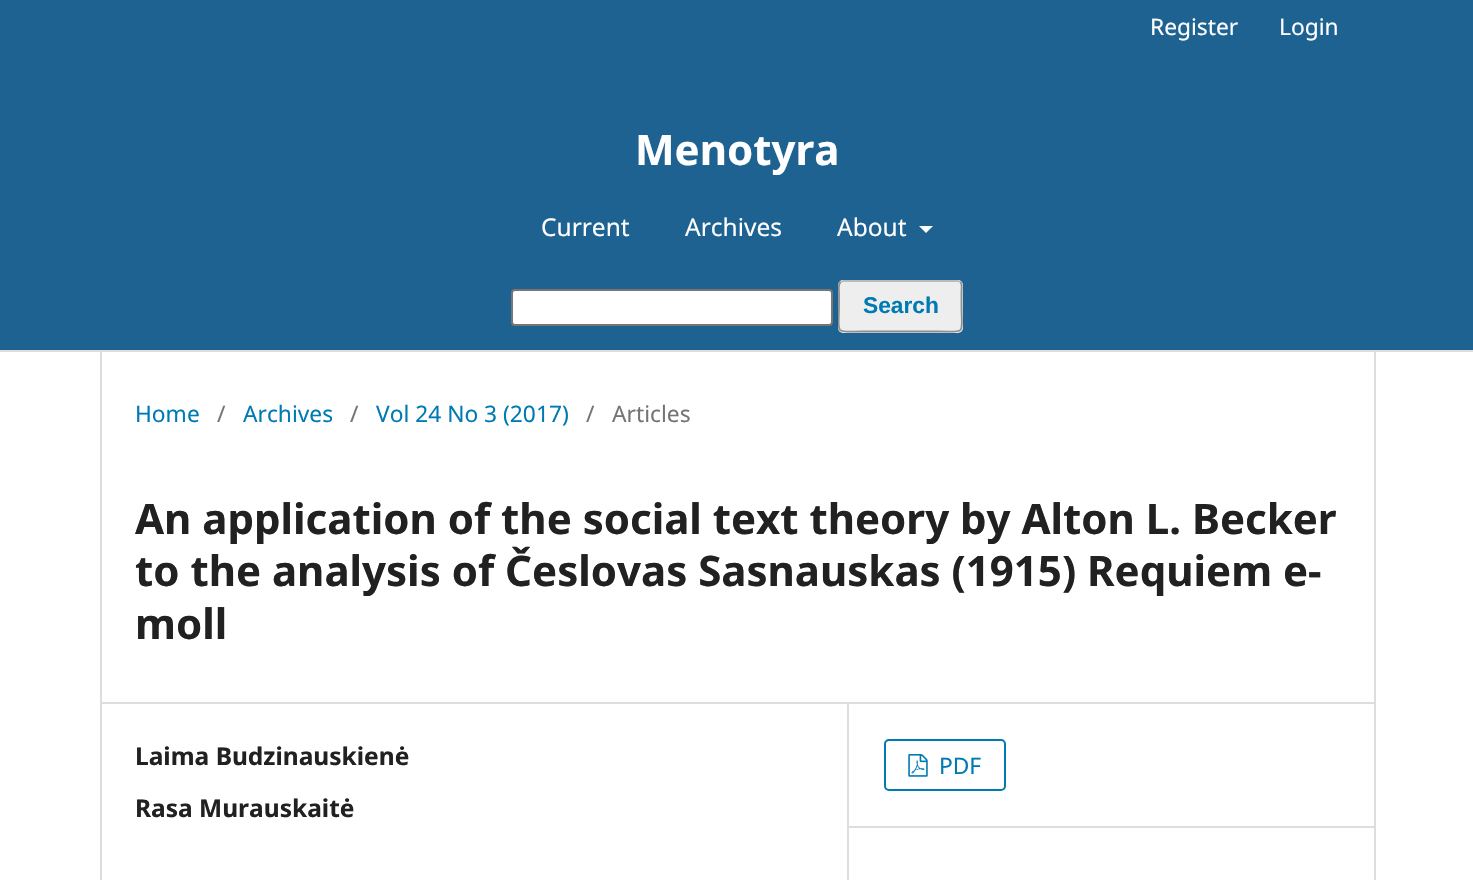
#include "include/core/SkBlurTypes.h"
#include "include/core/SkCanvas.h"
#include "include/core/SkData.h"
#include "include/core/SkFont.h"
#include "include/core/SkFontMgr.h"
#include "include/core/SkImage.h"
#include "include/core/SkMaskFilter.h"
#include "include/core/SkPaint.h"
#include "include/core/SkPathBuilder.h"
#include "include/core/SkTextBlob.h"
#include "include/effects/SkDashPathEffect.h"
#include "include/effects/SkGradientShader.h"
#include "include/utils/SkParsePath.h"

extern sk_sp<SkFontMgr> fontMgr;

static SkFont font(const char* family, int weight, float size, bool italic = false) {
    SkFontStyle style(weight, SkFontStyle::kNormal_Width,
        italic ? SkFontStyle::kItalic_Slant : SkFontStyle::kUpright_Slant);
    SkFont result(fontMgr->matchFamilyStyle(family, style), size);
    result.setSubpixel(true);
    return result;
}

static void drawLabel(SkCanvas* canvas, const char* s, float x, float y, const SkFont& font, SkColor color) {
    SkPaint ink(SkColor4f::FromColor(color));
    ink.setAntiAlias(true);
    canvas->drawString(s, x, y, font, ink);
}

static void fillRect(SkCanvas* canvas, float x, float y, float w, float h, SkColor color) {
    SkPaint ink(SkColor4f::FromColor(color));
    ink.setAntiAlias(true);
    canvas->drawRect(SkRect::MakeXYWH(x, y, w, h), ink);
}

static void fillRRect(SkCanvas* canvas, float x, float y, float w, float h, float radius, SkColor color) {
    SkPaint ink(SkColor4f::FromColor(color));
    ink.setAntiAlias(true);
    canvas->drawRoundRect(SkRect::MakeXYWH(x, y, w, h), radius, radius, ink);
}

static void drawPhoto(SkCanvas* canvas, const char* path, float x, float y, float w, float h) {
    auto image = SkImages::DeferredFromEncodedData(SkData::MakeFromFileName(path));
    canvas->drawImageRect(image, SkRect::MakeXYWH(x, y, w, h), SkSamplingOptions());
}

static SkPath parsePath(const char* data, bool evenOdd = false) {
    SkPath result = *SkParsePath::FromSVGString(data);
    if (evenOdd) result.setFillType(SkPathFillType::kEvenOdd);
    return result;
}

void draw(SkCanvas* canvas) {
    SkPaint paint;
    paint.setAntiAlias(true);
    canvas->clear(0xFFFFFFFF);
    fillRect(canvas, 0, 0, 1473, 350, 0xFF1E6292);
    fillRect(canvas, 0, 350, 1473, 2, 0xFFDDDDDD);
    SkFont font1 = font("Noto Sans", 400, 22.75f);
    drawLabel(canvas, "Register", 1150, 35, font1, 0xFFFFFFFF);
    drawLabel(canvas, "Login", 1279, 35, font1, 0xFFFFFFFF);
    SkFont font2 = font("Noto Sans", 700, 42);
    drawLabel(canvas, "Menotyra", 635, 165, font2, 0xFFFFFFFF);
    SkFont font3 = font("Noto Sans", 400, 24.5f);
    drawLabel(canvas, "Current", 541, 236, font3, 0xFFFFFFFF);
    drawLabel(canvas, "Archives", 685, 236, font3, 0xFFFFFFFF);
    drawLabel(canvas, "About", 837, 236, font3, 0xFFFFFFFF);
    paint.setColor(0xFFFFFFFF);
    canvas->drawPath(parsePath("M919 226H933L926 233Z"), paint);
    canvas->drawRoundRect(SkRect::MakeXYWH(512, 290, 320, 35), 3, 3, paint);
    paint.setStroke(true);
    paint.setStrokeWidth(2);
    paint.setColor(0xFF767676);
    canvas->drawRoundRect(SkRect::MakeXYWH(512, 290, 320, 35), 3, 3, paint);
    fillRRect(canvas, 838, 280, 125, 53, 5, 0xFFEEEEEE);
    paint.setStrokeWidth(1.8f);
    paint.setColor(0xFFBBBBBB);
    canvas->drawPath(parsePath("M840.5 282L843.5 281H957.5L960.5 282"), paint);
    paint.setColor(0x66000000);
    canvas->drawPath(parsePath("M960.5 282C962.5 284.5 961.5 290 961.5 292V306C961.5 335.5 967 331.5 938.5 331.5H862.5C833.5 331.5 839 335.5 839 306V292C839 290 838 284.5 840.5 282"), paint);
    SkFont font4 = font("Liberation Sans", 700, 22.75f);
    drawLabel(canvas, "Search", 863, 313, font4, 0xFF007AB2);
    fillRect(canvas, 100, 702, 1274, 2, 0xFFDDDDDD);
    fillRect(canvas, 100, 352, 2, 528, 0xFFDDDDDD);
    drawLabel(canvas, "Home", 135, 422, font1, 0xFF007AB2);
    drawLabel(canvas, "/", 217, 422, font1, 0xFF757575);
    drawLabel(canvas, "Archives", 243, 422, font1, 0xFF007AB2);
    drawLabel(canvas, "/", 350, 422, font1, 0xFF757575);
    drawLabel(canvas, "Vol 24 No 3 (2017)", 376, 422, font1, 0xFF007AB2);
    drawLabel(canvas, "/", 586, 422, font1, 0xFF757575);
    drawLabel(canvas, "Articles", 612, 422, font1, 0xFF757575);
    drawLabel(canvas, "An application of the social text theory by Alton L. Becker", 135, 534, font2, 0xFF212121);
    drawLabel(canvas, "to the analysis of Česlovas Sasnauskas (1915) Requiem e-", 135, 586, font2, 0xFF212121);
    drawLabel(canvas, "moll", 135, 639, font2, 0xFF212121);
    fillRect(canvas, 847, 704, 2, 176, 0xFFDDDDDD);
    SkFont font5 = font("Noto Sans", 700, 24.5f);
    drawLabel(canvas, "Laima Budzinauskienė", 135, 765, font5, 0xFF212121);
    drawLabel(canvas, "Rasa Murauskaitė", 135, 817, font5, 0xFF212121);
    fillRect(canvas, 849, 826, 525, 2, 0xFFDDDDDD);
    paint.setStrokeWidth(2);
    paint.setColor(0xFF007AB2);
    canvas->drawRoundRect(SkRect::MakeXYWH(885, 740, 120, 50), 4, 4, paint);
    drawPhoto(canvas, "assets/img1.png", 908, 754, 20, 23);
    drawLabel(canvas, "PDF", 939, 774, font1, 0xFF007AB2);
    fillRect(canvas, 1374, 352, 2, 528, 0xFFDDDDDD);
}
